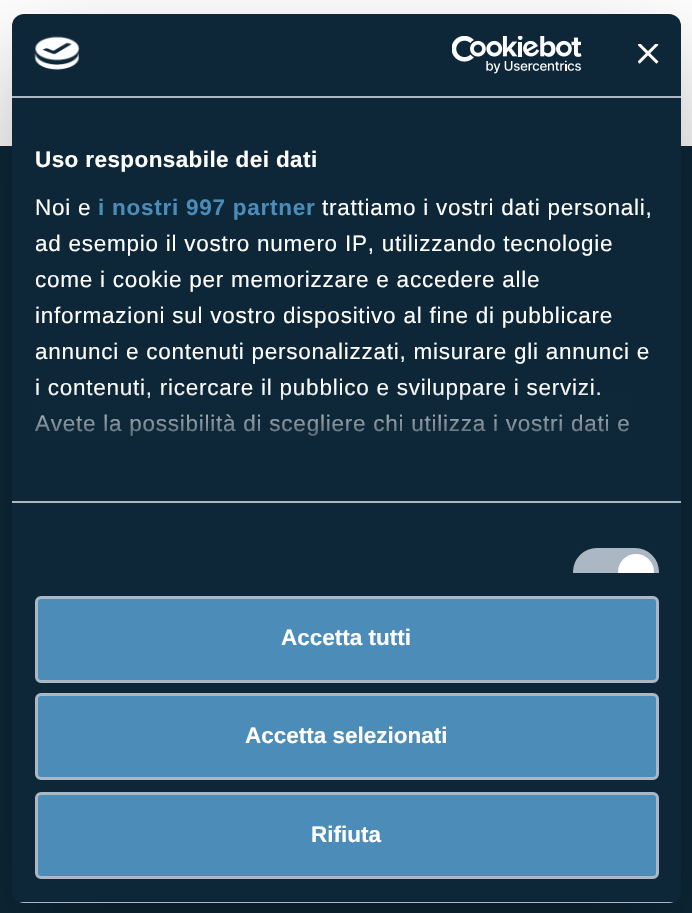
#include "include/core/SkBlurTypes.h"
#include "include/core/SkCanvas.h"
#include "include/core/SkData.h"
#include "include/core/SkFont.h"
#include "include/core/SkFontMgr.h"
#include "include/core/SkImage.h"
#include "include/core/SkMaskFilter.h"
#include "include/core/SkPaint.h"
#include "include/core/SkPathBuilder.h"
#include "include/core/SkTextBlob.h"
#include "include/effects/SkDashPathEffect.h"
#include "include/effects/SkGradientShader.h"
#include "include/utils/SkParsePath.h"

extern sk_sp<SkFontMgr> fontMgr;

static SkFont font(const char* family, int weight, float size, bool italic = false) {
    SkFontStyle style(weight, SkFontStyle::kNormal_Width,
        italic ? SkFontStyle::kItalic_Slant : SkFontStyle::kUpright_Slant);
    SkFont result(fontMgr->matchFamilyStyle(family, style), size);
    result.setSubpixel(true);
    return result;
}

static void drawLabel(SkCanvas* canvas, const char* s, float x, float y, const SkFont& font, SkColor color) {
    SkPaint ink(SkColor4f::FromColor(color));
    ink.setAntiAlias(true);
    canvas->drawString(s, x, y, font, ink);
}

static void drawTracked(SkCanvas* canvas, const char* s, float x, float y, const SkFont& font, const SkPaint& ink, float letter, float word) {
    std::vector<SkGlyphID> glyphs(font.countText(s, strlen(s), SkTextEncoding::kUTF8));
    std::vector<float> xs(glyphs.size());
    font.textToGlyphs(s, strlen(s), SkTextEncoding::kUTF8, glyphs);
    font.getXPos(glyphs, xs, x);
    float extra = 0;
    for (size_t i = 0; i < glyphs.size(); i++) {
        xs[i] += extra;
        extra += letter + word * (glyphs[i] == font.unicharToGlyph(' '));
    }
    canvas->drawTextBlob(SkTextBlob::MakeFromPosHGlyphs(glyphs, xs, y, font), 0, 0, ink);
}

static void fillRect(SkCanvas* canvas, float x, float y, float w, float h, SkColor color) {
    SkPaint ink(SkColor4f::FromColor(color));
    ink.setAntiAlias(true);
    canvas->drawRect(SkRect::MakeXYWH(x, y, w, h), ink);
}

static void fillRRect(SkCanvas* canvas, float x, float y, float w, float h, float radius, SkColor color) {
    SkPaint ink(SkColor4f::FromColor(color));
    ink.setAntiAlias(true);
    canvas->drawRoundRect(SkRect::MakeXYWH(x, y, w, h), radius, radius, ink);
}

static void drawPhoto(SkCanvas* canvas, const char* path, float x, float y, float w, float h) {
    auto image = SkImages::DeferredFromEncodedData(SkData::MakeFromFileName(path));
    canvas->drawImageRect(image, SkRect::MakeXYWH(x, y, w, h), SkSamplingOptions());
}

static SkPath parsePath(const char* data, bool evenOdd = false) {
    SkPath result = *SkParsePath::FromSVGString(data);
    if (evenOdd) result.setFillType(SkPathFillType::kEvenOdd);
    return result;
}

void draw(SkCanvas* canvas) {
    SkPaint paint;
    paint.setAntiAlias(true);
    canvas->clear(0xFFFFFFFF);
    fillRect(canvas, 0, 146, 692, 767, 0xFF0D2738);
    paint.setColor(0x4D000000);
    paint.setMaskFilter(SkMaskFilter::MakeBlur(kNormal_SkBlurStyle, 51));
    canvas->drawRoundRect(SkRect::MakeXYWH(12, 62, 669, 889), 12, 12, paint);
    paint.setMaskFilter(nullptr);
    fillRRect(canvas, 12, 14, 669, 889, 12, 0xFF0D2738);
    fillRect(canvas, 12, 96, 669, 2, 0xFFABB8C3);
    drawPhoto(canvas, "assets/img1.png", 34, 36, 46, 34);
    drawPhoto(canvas, "assets/img2.png", 452, 36, 130, 38);
    drawPhoto(canvas, "assets/img3.png", 638, 44, 21, 20);
    fillRect(canvas, 12, 501, 669, 2, 0xFFABB8C3);
    SkFont font1 = font("Liberation Sans", 700, 22.5f);
    paint.setColor(0xFFFFFFFF);
    drawTracked(canvas, "Uso responsabile dei dati", 35, 167, font1, paint, 0.4f, 0);
    SkFont font2 = font("Liberation Sans", 400, 22.5f);
    drawTracked(canvas, "Noi e", 35, 215, font2, paint, 0.75f, 0);
    paint.setColor(0xFF4B8CB8);
    drawTracked(canvas, "i nostri 997 partner", 98, 215, font1, paint, 0.75f, 0);
    paint.setColor(0xFFFFFFFF);
    drawTracked(canvas, "trattiamo i vostri dati personali,", 322, 215, font2, paint, 0.75f, 0);
    drawTracked(canvas, "ad esempio il vostro numero IP, utilizzando tecnologie", 35, 251, font2, paint, 0.75f, 0);
    drawTracked(canvas, "come i cookie per memorizzare e accedere alle", 35, 287, font2, paint, 0.75f, 0);
    drawTracked(canvas, "informazioni sul vostro dispositivo al fine di pubblicare", 35, 323, font2, paint, 0.75f, 0);
    drawTracked(canvas, "annunci e contenuti personalizzati, misurare gli annunci e", 35, 359, font2, paint, 0.75f, 0);
    drawTracked(canvas, "i contenuti, ricercare il pubblico e sviluppare i servizi.", 35, 395, font2, paint, 0.75f, 0);
    drawTracked(canvas, "Avete la possibilità di scegliere chi utilizza i vostri dati e", 35, 431, font2, paint, 0.75f, 0);
    {
        const SkColor colors[] = {0xFF0D2738, 0xCC0D2738, 0x000D2738};
        const float stops[] = {0, 0.5f, 1};
        const SkPoint ends[] = {{337, 500}, {337, 388}};
        paint.setShader(SkGradientShader::MakeLinear(ends, colors, stops, 3, SkTileMode::kClamp));
        paint.setAlpha(255);
    }
    canvas->drawRect(SkRect::MakeXYWH(34, 390, 595, 46), paint);
    canvas->save();
    canvas->clipRect(SkRect::MakeXYWH(12, 98, 669, 475));
    fillRRect(canvas, 573, 548, 86, 48, 24, 0xFFABB8C3);
    paint.setShader(nullptr);
    paint.setColor(0xFFFFFFFF);
    canvas->drawCircle(636, 572, 18, paint);
    canvas->restore();
    canvas->save();
    canvas->clipPath(parsePath("M24 14H669C675.5 14 681 19.5 681 26V891C681 897.5 675.5 903 669 903H24C17.5 903 12 897.5 12 891V26C12 19.5 17.5 14 24 14Z"), true);
    fillRect(canvas, 12, 902, 669, 1, 0xFFABB8C3);
    canvas->restore();
    paint.setColor(0xFF4B8CB8);
    canvas->drawRoundRect(SkRect::MakeXYWH(36.5f, 597.5f, 621, 84), 4.5f, 4.5f, paint);
    paint.setStroke(true);
    paint.setStrokeWidth(3);
    paint.setColor(0xFFABB8C3);
    canvas->drawRoundRect(SkRect::MakeXYWH(36.5f, 597.5f, 621, 84), 4.5f, 4.5f, paint);
    drawLabel(canvas, "Accetta tutti", 281, 645, font1, 0xFFFFFFFF);
    paint.setStroke(false);
    paint.setColor(0xFF4B8CB8);
    canvas->drawRoundRect(SkRect::MakeXYWH(36.5f, 694.5f, 621, 84), 4.5f, 4.5f, paint);
    paint.setStroke(true);
    paint.setColor(0xFFABB8C3);
    canvas->drawRoundRect(SkRect::MakeXYWH(36.5f, 694.5f, 621, 84), 4.5f, 4.5f, paint);
    drawLabel(canvas, "Accetta selezionati", 245, 743, font1, 0xFFFFFFFF);
    paint.setStroke(false);
    paint.setColor(0xFF4B8CB8);
    canvas->drawRoundRect(SkRect::MakeXYWH(36.5f, 793.5f, 621, 84), 4.5f, 4.5f, paint);
    paint.setStroke(true);
    paint.setColor(0xFFABB8C3);
    canvas->drawRoundRect(SkRect::MakeXYWH(36.5f, 793.5f, 621, 84), 4.5f, 4.5f, paint);
    drawLabel(canvas, "Rifiuta", 311, 842, font1, 0xFFFFFFFF);
}
